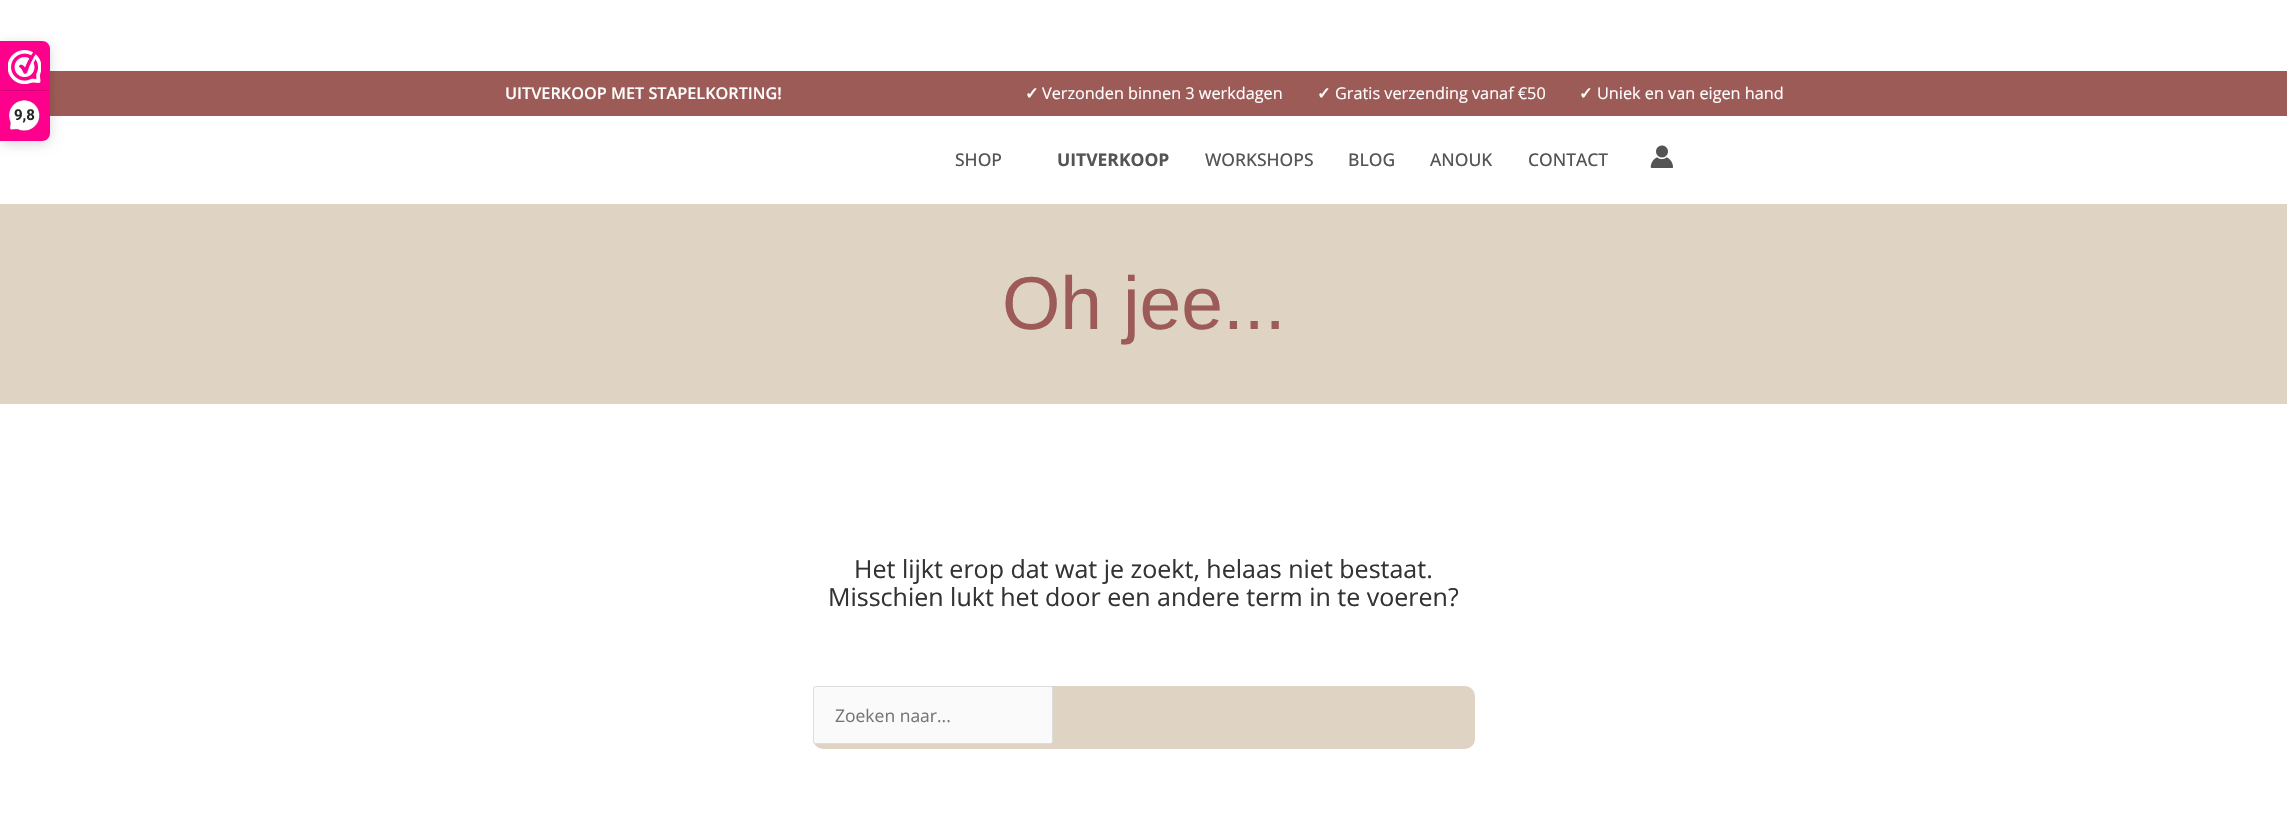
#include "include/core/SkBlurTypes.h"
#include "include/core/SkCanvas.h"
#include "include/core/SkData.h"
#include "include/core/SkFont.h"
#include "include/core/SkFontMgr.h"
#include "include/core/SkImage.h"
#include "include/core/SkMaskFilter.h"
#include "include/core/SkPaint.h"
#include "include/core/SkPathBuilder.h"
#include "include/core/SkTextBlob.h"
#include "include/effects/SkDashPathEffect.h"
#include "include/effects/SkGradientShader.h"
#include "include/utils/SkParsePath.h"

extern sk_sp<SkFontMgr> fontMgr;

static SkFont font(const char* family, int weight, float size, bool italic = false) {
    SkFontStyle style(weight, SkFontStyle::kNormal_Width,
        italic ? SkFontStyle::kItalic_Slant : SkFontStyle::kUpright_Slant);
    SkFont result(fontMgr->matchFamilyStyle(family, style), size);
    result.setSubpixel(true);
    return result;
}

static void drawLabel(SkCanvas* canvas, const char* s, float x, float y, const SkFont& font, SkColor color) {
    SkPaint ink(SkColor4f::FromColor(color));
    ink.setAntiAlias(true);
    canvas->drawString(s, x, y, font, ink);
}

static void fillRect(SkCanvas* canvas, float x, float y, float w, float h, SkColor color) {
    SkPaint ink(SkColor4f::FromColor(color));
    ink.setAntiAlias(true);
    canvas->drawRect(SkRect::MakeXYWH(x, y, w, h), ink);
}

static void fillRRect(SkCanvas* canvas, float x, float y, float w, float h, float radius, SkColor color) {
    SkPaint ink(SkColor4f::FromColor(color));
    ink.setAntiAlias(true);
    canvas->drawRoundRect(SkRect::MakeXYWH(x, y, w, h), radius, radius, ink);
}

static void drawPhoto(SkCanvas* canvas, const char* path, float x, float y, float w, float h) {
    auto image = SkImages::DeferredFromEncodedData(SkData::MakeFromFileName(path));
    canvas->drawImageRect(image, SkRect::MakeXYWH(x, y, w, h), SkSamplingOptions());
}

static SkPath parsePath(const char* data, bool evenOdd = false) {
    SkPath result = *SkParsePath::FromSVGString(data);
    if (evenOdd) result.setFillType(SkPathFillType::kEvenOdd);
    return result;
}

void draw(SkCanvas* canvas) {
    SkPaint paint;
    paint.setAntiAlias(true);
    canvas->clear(0xFFFFFFFF);
    fillRect(canvas, 50, 71, 2237, 45, 0xFF9D5B57);
    paint.setColor(0x26000000);
    paint.setMaskFilter(SkMaskFilter::MakeBlur(kNormal_SkBlurStyle, 6));
    canvas->drawRoundRect(SkRect::MakeXYWH(0, 44, 50, 100), 8, 8, paint);
    paint.setMaskFilter(nullptr);
    paint.setColor(0xFFFE008C);
    canvas->drawPath(parsePath("M0 41H42C46.5 41 50 44.5 50 49V133C50 137.5 46.5 141 42 141H0Z"), paint);
    drawPhoto(canvas, "assets/img1.png", 8, 50, 33, 34);
    fillRect(canvas, 0, 90, 49, 1, 0xFFD80077);
    drawPhoto(canvas, "assets/img2.png", 9, 100, 31, 31);
    SkFont font1 = font("Roboto", 700, 15);
    drawLabel(canvas, "9,8", 14, 120, font1, 0xFF272626);
    SkFont font2 = font("Open Sans", 600, 16.25f);
    drawLabel(canvas, "UITVERKOOP MET STAPELKORTING!", 505, 99, font2, 0xFFFFFFFF);
    SkFont font3 = font("DejaVu Sans", 700, 16.25f);
    drawLabel(canvas, "✓", 1025, 99, font3, 0xFFFFFFFF);
    SkFont font4 = font("Open Sans", 400, 16.25f);
    drawLabel(canvas, "Verzonden binnen 3 werkdagen", 1042, 99, font4, 0xFFFFFFFF);
    drawLabel(canvas, "✓", 1317, 99, font3, 0xFFFFFFFF);
    drawLabel(canvas, "Gratis verzending vanaf €50", 1335, 99, font4, 0xFFFFFFFF);
    drawLabel(canvas, "✓", 1579, 99, font3, 0xFFFFFFFF);
    drawLabel(canvas, "Uniek en van eigen hand", 1597, 99, font4, 0xFFFFFFFF);
    SkFont font5 = font("Open Sans", 500, 17.5f);
    drawLabel(canvas, "SHOP", 955, 166, font5, 0xFF545454);
    SkFont font6 = font("Open Sans", 700, 17.5f);
    drawLabel(canvas, "UITVERKOOP", 1057, 166, font6, 0xFF545454);
    drawLabel(canvas, "WORKSHOPS", 1205, 166, font5, 0xFF545454);
    drawLabel(canvas, "BLOG", 1348, 166, font5, 0xFF545454);
    drawLabel(canvas, "ANOUK", 1430, 166, font5, 0xFF545454);
    drawLabel(canvas, "CONTACT", 1528, 166, font5, 0xFF545454);
    drawPhoto(canvas, "assets/img3.png", 1650, 145, 23, 23);
    fillRect(canvas, 0, 204, 2287, 200, 0xFFDFD3C4);
    SkFont font7 = font("Liberation Sans", 400, 75);
    drawLabel(canvas, "Oh jee...", 1002, 329, font7, 0xFF9D5B57);
    SkFont font8 = font("Open Sans", 400, 25);
    drawLabel(canvas, "Het lijkt erop dat wat je zoekt, helaas niet bestaat.", 854, 578, font8, 0xFF333333);
    drawLabel(canvas, "Misschien lukt het door een andere term in te voeren?", 828, 606, font8, 0xFF333333);
    fillRRect(canvas, 813, 686, 662, 63, 10, 0xFFDFD3C4);
    paint.setColor(0xFFFAFAFA);
    canvas->drawRoundRect(SkRect::MakeXYWH(813.5f, 686.5f, 239, 57), 2, 2, paint);
    paint.setStroke(true);
    paint.setStrokeWidth(1);
    paint.setColor(0xFFDDDDDD);
    canvas->drawRoundRect(SkRect::MakeXYWH(813.5f, 686.5f, 239, 57), 2, 2, paint);
    SkFont font9 = font("Open Sans", 400, 17.5f);
    drawLabel(canvas, "Zoeken naar...", 835, 722, font9, 0xFF757575);
}
